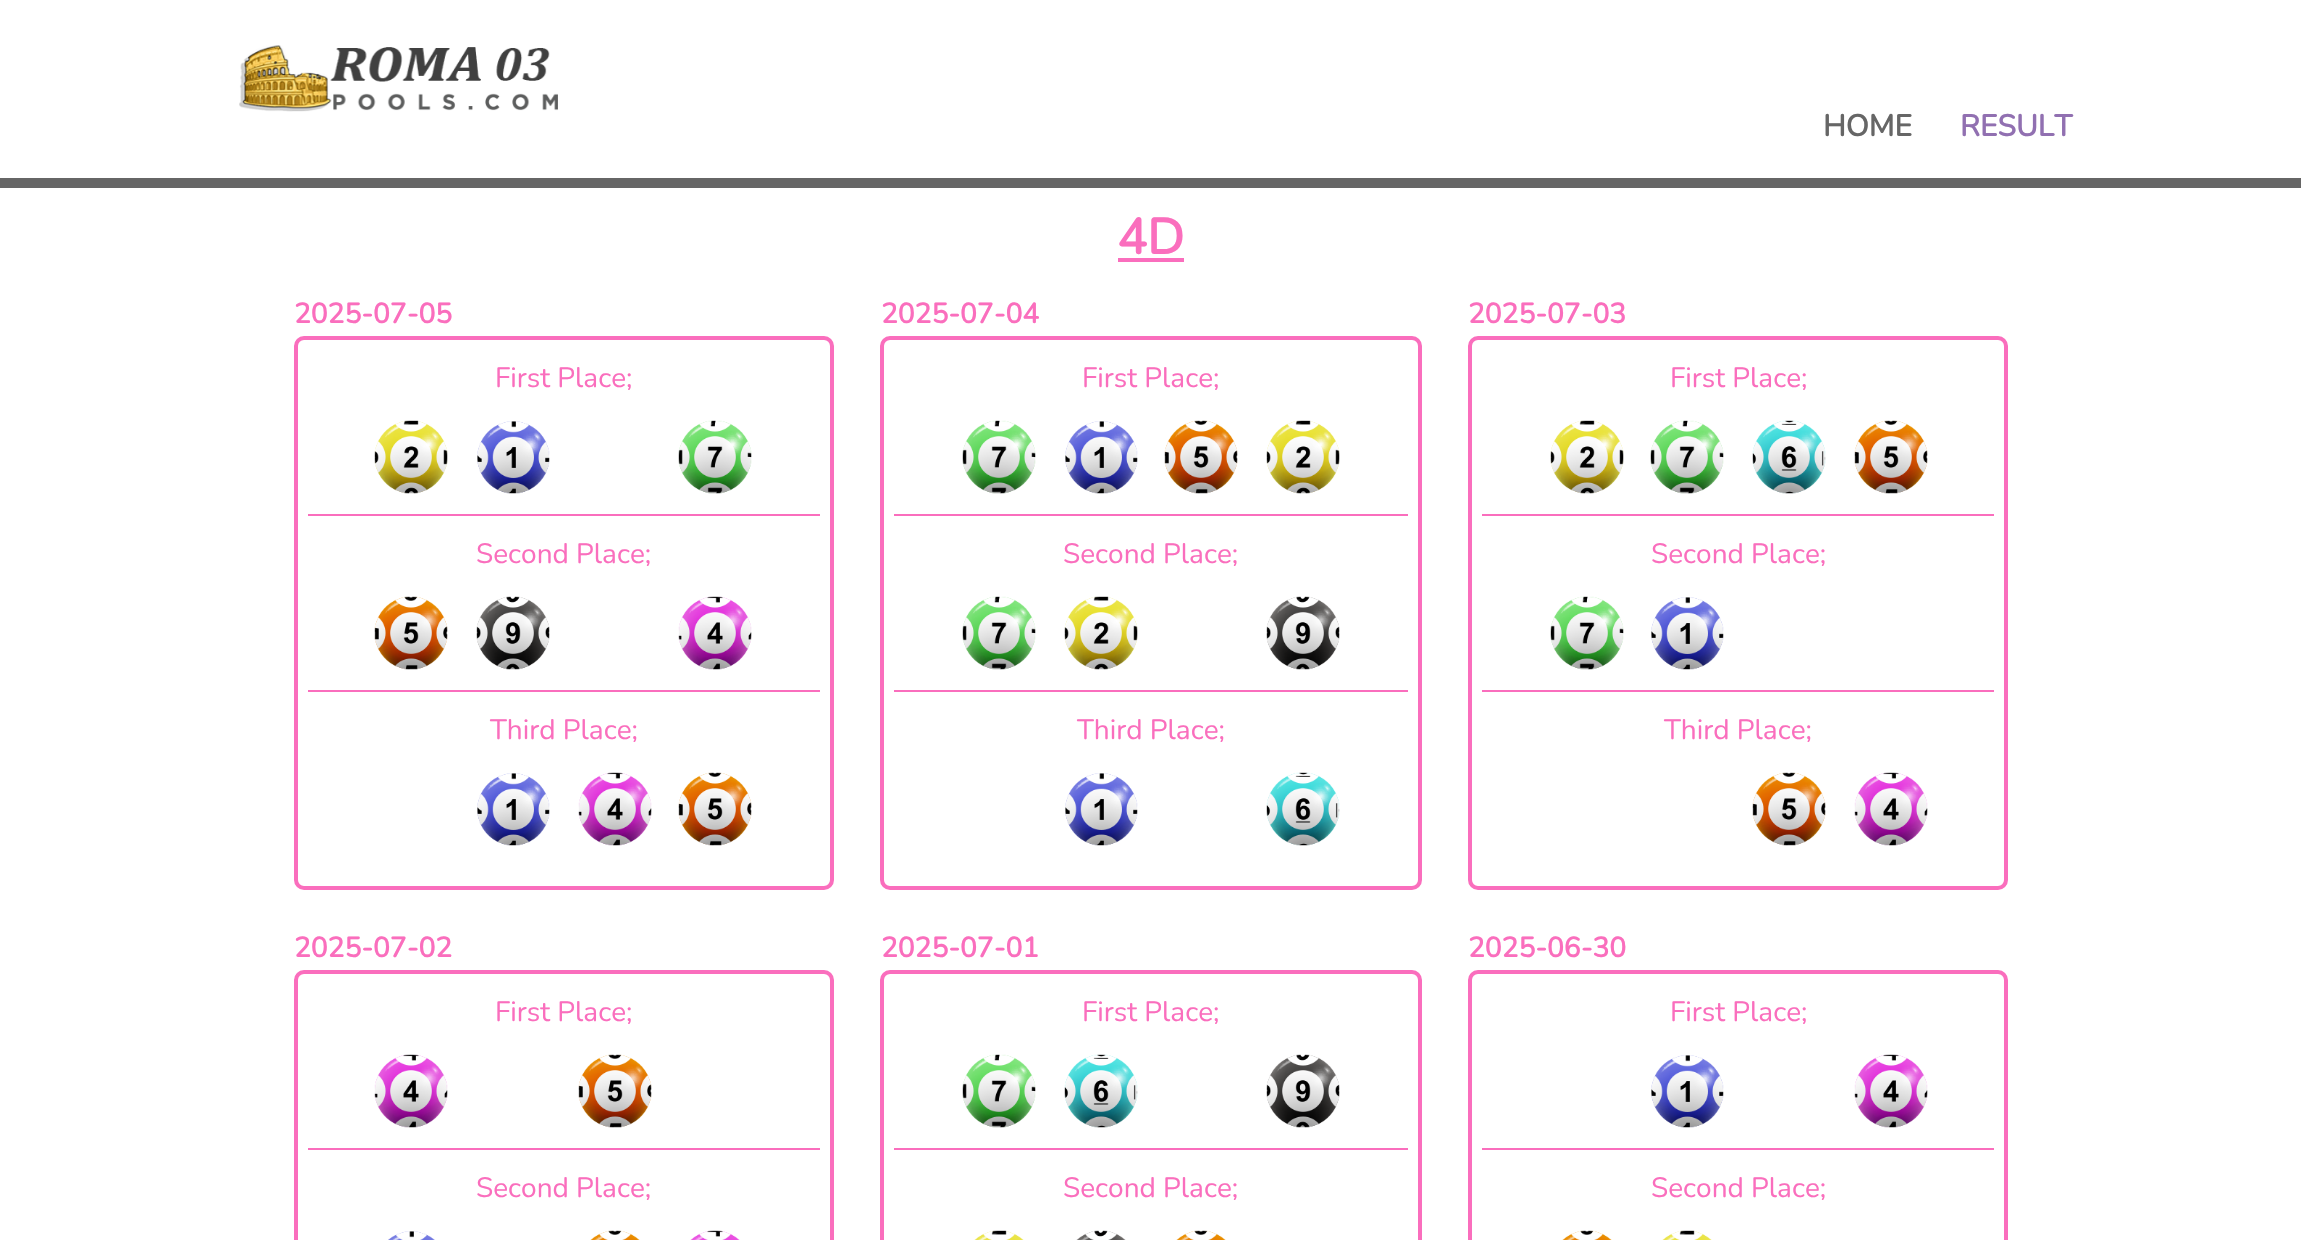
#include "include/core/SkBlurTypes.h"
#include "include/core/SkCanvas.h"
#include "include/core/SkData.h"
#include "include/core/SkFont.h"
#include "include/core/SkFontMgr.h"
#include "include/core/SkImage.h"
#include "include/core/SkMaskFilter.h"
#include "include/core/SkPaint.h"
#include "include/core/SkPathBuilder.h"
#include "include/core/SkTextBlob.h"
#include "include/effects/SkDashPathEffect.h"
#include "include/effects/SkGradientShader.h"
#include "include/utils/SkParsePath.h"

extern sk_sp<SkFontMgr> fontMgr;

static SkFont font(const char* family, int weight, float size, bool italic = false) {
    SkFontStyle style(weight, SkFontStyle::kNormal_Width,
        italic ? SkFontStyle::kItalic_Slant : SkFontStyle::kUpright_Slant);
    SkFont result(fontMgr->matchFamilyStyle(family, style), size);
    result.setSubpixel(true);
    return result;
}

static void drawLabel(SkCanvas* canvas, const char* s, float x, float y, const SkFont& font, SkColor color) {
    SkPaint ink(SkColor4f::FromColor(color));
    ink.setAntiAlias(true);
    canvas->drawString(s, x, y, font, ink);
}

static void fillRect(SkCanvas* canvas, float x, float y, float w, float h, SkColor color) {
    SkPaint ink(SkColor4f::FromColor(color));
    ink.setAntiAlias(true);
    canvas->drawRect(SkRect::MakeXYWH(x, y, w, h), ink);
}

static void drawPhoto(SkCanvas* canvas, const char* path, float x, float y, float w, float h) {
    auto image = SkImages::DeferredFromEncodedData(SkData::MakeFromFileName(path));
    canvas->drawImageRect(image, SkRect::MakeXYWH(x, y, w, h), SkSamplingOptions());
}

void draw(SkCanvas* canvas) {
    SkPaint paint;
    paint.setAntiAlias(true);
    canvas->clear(0xFFFFFFFF);
    fillRect(canvas, 0, 178, 2301, 10, 0xFF666666);
    drawPhoto(canvas, "assets/img1.png", 239, 45, 319, 67);
    SkFont font1 = font("Nunito", 700, 30);
    drawLabel(canvas, "HOME", 1823, 136, font1, 0xFF666666);
    drawLabel(canvas, "RESULT", 1960, 136, font1, 0xFF9170B1);
    SkFont font2 = font("Nunito", 700, 50);
    drawLabel(canvas, "4D", 1117, 254, font2, 0xFFFA6EBD);
    fillRect(canvas, 1118, 258, 66, 4, 0xFFFA6EBD);
    SkFont font3 = font("Nunito", 700, 28);
    drawLabel(canvas, "2025-07-05", 294, 323, font3, 0xFFFA6EBD);
    paint.setStroke(true);
    paint.setStrokeWidth(4);
    paint.setColor(0xFFFA6EBD);
    canvas->drawRoundRect(SkRect::MakeXYWH(296, 338, 536, 550), 8, 8, paint);
    SkFont font4 = font("Nunito", 200, 28);
    drawLabel(canvas, "First Place;", 495, 387, font4, 0xFFFA6EBD);
    fillRect(canvas, 308, 514, 512, 2, 0xFFFA6EBD);
    drawPhoto(canvas, "assets/img2.png", 374, 420, 74, 74);
    drawPhoto(canvas, "assets/img3.png", 477, 421, 73, 73);
    drawPhoto(canvas, "assets/img4.png", 678, 420, 74, 74);
    drawLabel(canvas, "Second Place;", 476, 563, font4, 0xFFFA6EBD);
    fillRect(canvas, 308, 690, 512, 2, 0xFFFA6EBD);
    drawPhoto(canvas, "assets/img5.png", 374, 596, 74, 74);
    drawPhoto(canvas, "assets/img6.png", 476, 596, 74, 74);
    drawPhoto(canvas, "assets/img7.png", 678, 596, 74, 74);
    drawLabel(canvas, "Third Place;", 490, 739, font4, 0xFFFA6EBD);
    drawPhoto(canvas, "assets/img3.png", 477, 773, 73, 73);
    drawPhoto(canvas, "assets/img8.png", 578, 772, 74, 74);
    drawPhoto(canvas, "assets/img9.png", 678, 772, 74, 74);
    drawLabel(canvas, "2025-07-04", 881, 323, font3, 0xFFFA6EBD);
    canvas->drawRoundRect(SkRect::MakeXYWH(882, 338, 538, 550), 8, 8, paint);
    drawLabel(canvas, "First Place;", 1082, 387, font4, 0xFFFA6EBD);
    fillRect(canvas, 894, 514, 514, 2, 0xFFFA6EBD);
    drawPhoto(canvas, "assets/img10.png", 962, 420, 74, 74);
    drawPhoto(canvas, "assets/img11.png", 1065, 421, 73, 73);
    drawPhoto(canvas, "assets/img9.png", 1164, 420, 74, 74);
    drawPhoto(canvas, "assets/img12.png", 1266, 420, 74, 74);
    drawLabel(canvas, "Second Place;", 1063, 563, font4, 0xFFFA6EBD);
    fillRect(canvas, 894, 690, 514, 2, 0xFFFA6EBD);
    drawPhoto(canvas, "assets/img10.png", 962, 596, 74, 74);
    drawPhoto(canvas, "assets/img2.png", 1064, 596, 74, 74);
    drawPhoto(canvas, "assets/img13.png", 1266, 596, 74, 74);
    drawLabel(canvas, "Third Place;", 1077, 739, font4, 0xFFFA6EBD);
    drawPhoto(canvas, "assets/img11.png", 1065, 773, 73, 73);
    drawPhoto(canvas, "assets/img14.png", 1266, 772, 74, 74);
    drawLabel(canvas, "2025-07-03", 1468, 323, font3, 0xFFFA6EBD);
    canvas->drawRoundRect(SkRect::MakeXYWH(1470, 338, 536, 550), 8, 8, paint);
    drawLabel(canvas, "First Place;", 1670, 387, font4, 0xFFFA6EBD);
    fillRect(canvas, 1482, 514, 512, 2, 0xFFFA6EBD);
    drawPhoto(canvas, "assets/img12.png", 1550, 420, 74, 74);
    drawPhoto(canvas, "assets/img4.png", 1650, 420, 74, 74);
    drawPhoto(canvas, "assets/img14.png", 1752, 420, 74, 74);
    drawPhoto(canvas, "assets/img5.png", 1854, 420, 74, 74);
    drawLabel(canvas, "Second Place;", 1651, 563, font4, 0xFFFA6EBD);
    fillRect(canvas, 1482, 690, 512, 2, 0xFFFA6EBD);
    drawPhoto(canvas, "assets/img4.png", 1550, 596, 74, 74);
    drawPhoto(canvas, "assets/img15.png", 1651, 597, 73, 73);
    drawLabel(canvas, "Third Place;", 1664, 739, font4, 0xFFFA6EBD);
    drawPhoto(canvas, "assets/img9.png", 1752, 772, 74, 74);
    drawPhoto(canvas, "assets/img8.png", 1854, 772, 74, 74);
    drawLabel(canvas, "2025-07-02", 294, 957, font3, 0xFFFA6EBD);
    canvas->drawRoundRect(SkRect::MakeXYWH(296, 972, 536, 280), 8, 8, paint);
    drawLabel(canvas, "First Place;", 495, 1021, font4, 0xFFFA6EBD);
    fillRect(canvas, 308, 1148, 512, 2, 0xFFFA6EBD);
    drawPhoto(canvas, "assets/img16.png", 374, 1054, 74, 74);
    drawPhoto(canvas, "assets/img17.png", 578, 1054, 74, 74);
    drawLabel(canvas, "Second Place;", 476, 1197, font4, 0xFFFA6EBD);
    drawPhoto(canvas, "assets/img18.png", 388, 1231, 47, 9);
    drawPhoto(canvas, "assets/img19.png", 590, 1230, 50, 10);
    drawPhoto(canvas, "assets/img20.png", 690, 1230, 50, 10);
    drawLabel(canvas, "2025-07-01", 881, 957, font3, 0xFFFA6EBD);
    canvas->drawRoundRect(SkRect::MakeXYWH(882, 972, 538, 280), 8, 8, paint);
    drawLabel(canvas, "First Place;", 1082, 1021, font4, 0xFFFA6EBD);
    fillRect(canvas, 894, 1148, 514, 2, 0xFFFA6EBD);
    drawPhoto(canvas, "assets/img21.png", 962, 1054, 74, 74);
    drawPhoto(canvas, "assets/img22.png", 1064, 1054, 74, 74);
    drawPhoto(canvas, "assets/img23.png", 1266, 1054, 74, 74);
    drawLabel(canvas, "Second Place;", 1063, 1197, font4, 0xFFFA6EBD);
    drawPhoto(canvas, "assets/img24.png", 974, 1230, 50, 10);
    drawPhoto(canvas, "assets/img25.png", 1076, 1230, 50, 10);
    drawPhoto(canvas, "assets/img26.png", 1176, 1230, 50, 10);
    drawLabel(canvas, "2025-06-30", 1468, 957, font3, 0xFFFA6EBD);
    canvas->drawRoundRect(SkRect::MakeXYWH(1470, 972, 536, 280), 8, 8, paint);
    drawLabel(canvas, "First Place;", 1670, 1021, font4, 0xFFFA6EBD);
    fillRect(canvas, 1482, 1148, 512, 2, 0xFFFA6EBD);
    drawPhoto(canvas, "assets/img27.png", 1651, 1055, 73, 73);
    drawPhoto(canvas, "assets/img16.png", 1854, 1054, 74, 74);
    drawLabel(canvas, "Second Place;", 1651, 1197, font4, 0xFFFA6EBD);
    drawPhoto(canvas, "assets/img26.png", 1562, 1230, 50, 10);
    drawPhoto(canvas, "assets/img28.png", 1662, 1230, 50, 10);
}
